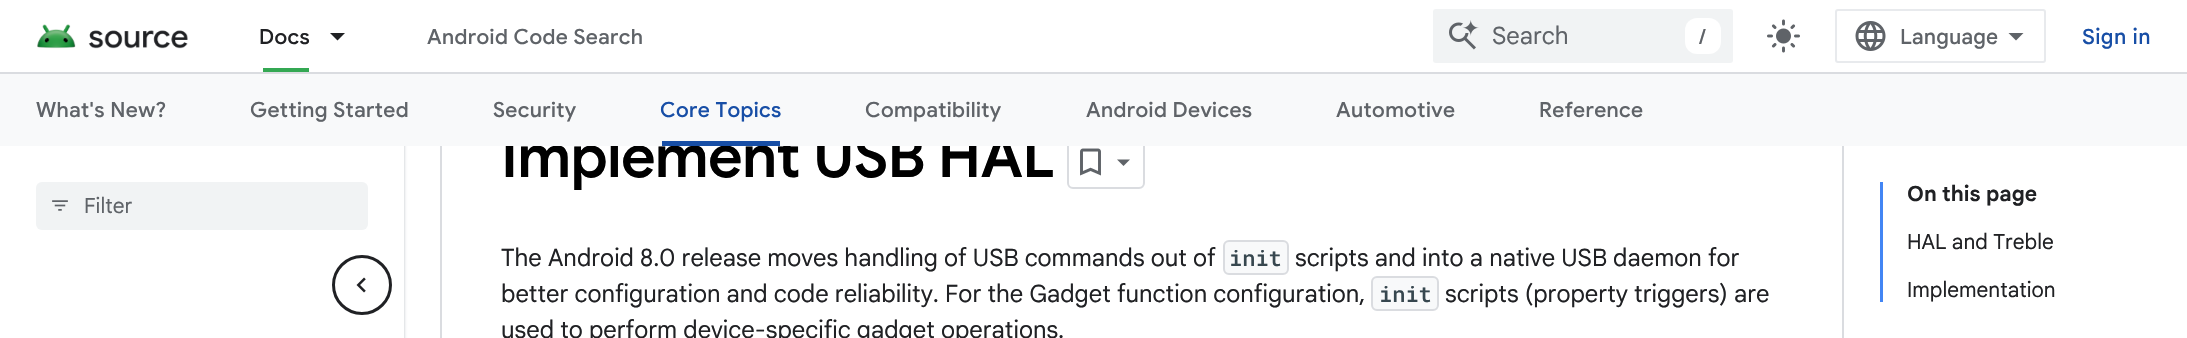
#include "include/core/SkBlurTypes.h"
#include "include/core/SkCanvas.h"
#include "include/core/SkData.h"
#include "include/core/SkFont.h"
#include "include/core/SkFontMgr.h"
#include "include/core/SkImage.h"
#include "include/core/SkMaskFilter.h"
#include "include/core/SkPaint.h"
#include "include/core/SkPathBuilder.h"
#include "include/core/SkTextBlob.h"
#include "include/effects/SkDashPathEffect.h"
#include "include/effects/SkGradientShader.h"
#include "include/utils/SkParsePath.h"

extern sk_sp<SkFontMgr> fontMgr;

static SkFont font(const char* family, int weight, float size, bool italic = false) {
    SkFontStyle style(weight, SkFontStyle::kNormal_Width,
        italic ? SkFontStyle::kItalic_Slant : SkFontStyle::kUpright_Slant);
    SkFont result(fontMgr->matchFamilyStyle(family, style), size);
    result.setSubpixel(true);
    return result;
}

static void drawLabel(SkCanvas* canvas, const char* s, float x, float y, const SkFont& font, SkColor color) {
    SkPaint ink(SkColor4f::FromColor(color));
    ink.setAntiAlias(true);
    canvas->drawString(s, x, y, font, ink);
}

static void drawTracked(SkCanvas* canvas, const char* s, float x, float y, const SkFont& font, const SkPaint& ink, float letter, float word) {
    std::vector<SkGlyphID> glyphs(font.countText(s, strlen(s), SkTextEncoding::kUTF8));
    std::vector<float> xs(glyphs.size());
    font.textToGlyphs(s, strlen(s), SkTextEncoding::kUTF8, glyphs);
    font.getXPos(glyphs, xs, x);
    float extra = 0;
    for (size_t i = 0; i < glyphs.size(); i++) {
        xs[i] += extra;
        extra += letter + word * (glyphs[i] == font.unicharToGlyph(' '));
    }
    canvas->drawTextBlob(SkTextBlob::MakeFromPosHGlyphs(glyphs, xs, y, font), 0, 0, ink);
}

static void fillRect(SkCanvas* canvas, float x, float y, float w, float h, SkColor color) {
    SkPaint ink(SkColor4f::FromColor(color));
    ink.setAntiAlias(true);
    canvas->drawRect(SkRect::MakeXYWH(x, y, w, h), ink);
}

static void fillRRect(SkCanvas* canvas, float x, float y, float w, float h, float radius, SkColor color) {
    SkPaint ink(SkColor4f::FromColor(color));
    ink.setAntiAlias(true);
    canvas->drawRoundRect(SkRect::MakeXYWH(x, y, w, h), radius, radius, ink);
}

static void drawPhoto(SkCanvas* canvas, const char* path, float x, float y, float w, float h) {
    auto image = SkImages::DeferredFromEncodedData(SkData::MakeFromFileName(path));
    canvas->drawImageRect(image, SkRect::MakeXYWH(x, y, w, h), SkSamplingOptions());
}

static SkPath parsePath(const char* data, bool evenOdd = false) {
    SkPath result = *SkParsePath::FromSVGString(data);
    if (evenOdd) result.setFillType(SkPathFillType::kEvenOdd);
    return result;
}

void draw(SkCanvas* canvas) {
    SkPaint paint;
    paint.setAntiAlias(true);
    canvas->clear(0xFFFFFFFF);
    paint.setColor(0xFFBDC1C6);
    paint.setMaskFilter(SkMaskFilter::MakeBlur(kNormal_SkBlurStyle, 1.5f));
    canvas->drawRect(SkRect::MakeXYWH(0, 2, 404, 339), paint);
    paint.setMaskFilter(nullptr);
    paint.setStroke(true);
    paint.setStrokeWidth(2);
    paint.setColor(0xFFDADCE0);
    canvas->drawRect(SkRect::MakeXYWH(441, -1, 1402, 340), paint);
    fillRect(canvas, 0, 0, 1844, 72, 0xFFFFFFFF);
    fillRect(canvas, 0, 72, 2187, 2, 0xFFDADCE0);
    drawPhoto(canvas, "assets/img1.png", 37, 24, 151, 25);
    SkFont font1 = font("Google Sans", 500, 21);
    paint.setStroke(false);
    paint.setColor(0xFF202124);
    drawTracked(canvas, "Docs", 259, 44, font1, paint, 0.4f, 0);
    fillRect(canvas, 263, 68, 46, 4, 0xFF34A853);
    canvas->drawPath(parsePath("M330 33H345L337.5 40.5Z"), paint);
    paint.setColor(0xFF5F6368);
    drawTracked(canvas, "Android Code Search", 427, 44, font1, paint, 0.4f, 0);
    fillRRect(canvas, 1433, 9, 300, 54, 3, 0xFFF1F3F4);
    drawPhoto(canvas, "assets/img2.png", 1449, 20, 30, 30);
    SkFont font2 = font("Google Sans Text", 400, 24);
    drawLabel(canvas, "Search", 1492, 44, font2, 0xFF5F6368);
    fillRRect(canvas, 1685, 18, 36, 36, 12, 0xFFFFFFFF);
    drawLabel(canvas, "/", 1699, 44, font1, 0xFF5F6368);
    drawPhoto(canvas, "assets/img3.png", 1767, 19, 33, 34);
    paint.setStroke(true);
    paint.setColor(0xFFE8EAED);
    canvas->drawRoundRect(SkRect::MakeXYWH(1836, 10, 209, 52), 2, 2, paint);
    drawPhoto(canvas, "assets/img4.png", 1855, 21, 31, 30);
    SkFont font3 = font("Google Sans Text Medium", 500, 21);
    drawLabel(canvas, "Language", 1900, 44, font3, 0xFF5F6368);
    paint.setStroke(false);
    paint.setColor(0xFF5F6368);
    canvas->drawPath(parsePath("M2016 40.5L2008.5 33H2023.5Z"), paint);
    paint.setColor(0xFF174EA6);
    drawTracked(canvas, "Sign in", 2082, 44, font3, paint, 0.4f, 0);
    SkFont font4 = font("Google Sans", 600, 60);
    paint.setColor(0xFF000000);
    drawTracked(canvas, "Implement USB HAL", 501, 177, font4, paint, -0.75f, 0);
    paint.setStroke(true);
    paint.setColor(0xFFDADCE0);
    canvas->drawRoundRect(SkRect::MakeXYWH(1068, 136, 76, 52), 5, 5, paint);
    fillRect(canvas, 0, 74, 2187, 72, 0xFFF8F9FA);
    paint.setStroke(false);
    paint.setColor(0xFF5F6368);
    drawTracked(canvas, "What's New?", 36, 117, font1, paint, 0.4f, 0);
    drawTracked(canvas, "Getting Started", 250, 117, font1, paint, 0.4f, 0);
    drawTracked(canvas, "Security", 493, 117, font1, paint, 0.4f, 0);
    paint.setColor(0xFF174EA6);
    drawTracked(canvas, "Core Topics", 660, 117, font1, paint, 0.4f, 0);
    fillRect(canvas, 662, 141, 118, 5, 0xFF174EA6);
    paint.setColor(0xFF5F6368);
    drawTracked(canvas, "Compatibility", 865, 117, font1, paint, 0.4f, 0);
    drawTracked(canvas, "Android Devices", 1086, 117, font1, paint, 0.4f, 0);
    drawTracked(canvas, "Automotive", 1336, 117, font1, paint, 0.4f, 0);
    drawTracked(canvas, "Reference", 1539, 117, font1, paint, 0.4f, 0);
    fillRect(canvas, 0, 146, 404, 192, 0xFFFFFFFF);
    fillRRect(canvas, 36, 182, 332, 48, 6, 0xFFF1F3F4);
    drawPhoto(canvas, "assets/img5.png", 52, 200, 16, 11);
    SkFont font5 = font("Google Sans Text", 400, 21);
    drawLabel(canvas, "Filter", 84, 213, font5, 0xFF5F6368);
    drawPhoto(canvas, "assets/img6.png", 1080, 148, 21, 28);
    canvas->drawPath(parsePath("M1117 159.5H1130L1123.5 166Z"), paint);
    drawLabel(canvas, "The Android 8.0 release moves handling of USB commands out of", 501, 266, font2, 0xFF202124);
    paint.setColor(0xFFF8F9FA);
    canvas->drawRoundRect(SkRect::MakeXYWH(1224, 241, 64, 33), 5, 5, paint);
    paint.setStroke(true);
    paint.setColor(0xFFDADCE0);
    canvas->drawRoundRect(SkRect::MakeXYWH(1224, 241, 64, 33), 5, 5, paint);
    SkFont font6 = font("Roboto Mono", 500, 22);
    drawLabel(canvas, "init", 1229, 266, font6, 0xFF37474F);
    drawLabel(canvas, "scripts and into a native USB daemon for", 1295, 266, font2, 0xFF202124);
    drawLabel(canvas, "better configuration and code reliability. For the Gadget function configuration,", 501, 302, font2, 0xFF202124);
    paint.setStroke(false);
    paint.setColor(0xFFF8F9FA);
    canvas->drawRoundRect(SkRect::MakeXYWH(1372, 277, 66, 33), 5, 5, paint);
    paint.setStroke(true);
    paint.setColor(0xFFDADCE0);
    canvas->drawRoundRect(SkRect::MakeXYWH(1372, 277, 66, 33), 5, 5, paint);
    drawLabel(canvas, "init", 1379, 302, font6, 0xFF37474F);
    drawLabel(canvas, "scripts (property triggers) are", 1445, 302, font2, 0xFF202124);
    drawLabel(canvas, "used to perform device-specific gadget operations.", 501, 338, font2, 0xFF202124);
    fillRect(canvas, 1880, 182, 3, 120, 0xFF4285F4);
    SkFont font7 = font("Google Sans Text", 700, 21);
    drawLabel(canvas, "On this page", 1907, 201, font7, 0xFF202124);
    drawLabel(canvas, "HAL and Treble", 1907, 249, font5, 0xFF202124);
    drawLabel(canvas, "Implementation", 1907, 297, font5, 0xFF202124);
    paint.setStrokeWidth(3);
    paint.setColor(0xFF202124);
    canvas->drawCircle(362, 285, 28.5f, paint);
    drawPhoto(canvas, "assets/img7.png", 356, 277, 10, 16);
}
